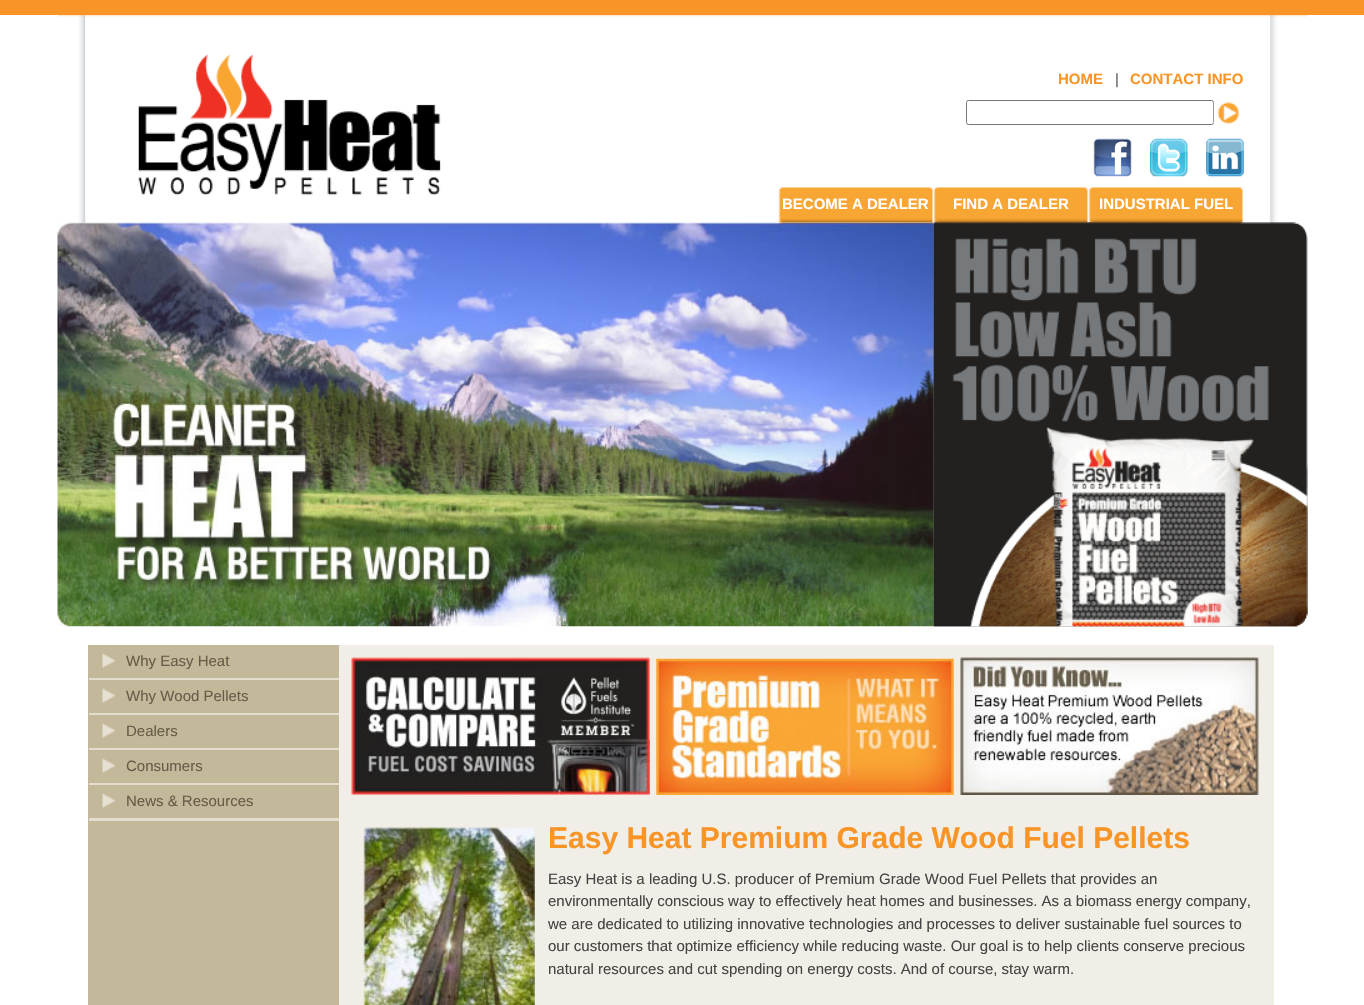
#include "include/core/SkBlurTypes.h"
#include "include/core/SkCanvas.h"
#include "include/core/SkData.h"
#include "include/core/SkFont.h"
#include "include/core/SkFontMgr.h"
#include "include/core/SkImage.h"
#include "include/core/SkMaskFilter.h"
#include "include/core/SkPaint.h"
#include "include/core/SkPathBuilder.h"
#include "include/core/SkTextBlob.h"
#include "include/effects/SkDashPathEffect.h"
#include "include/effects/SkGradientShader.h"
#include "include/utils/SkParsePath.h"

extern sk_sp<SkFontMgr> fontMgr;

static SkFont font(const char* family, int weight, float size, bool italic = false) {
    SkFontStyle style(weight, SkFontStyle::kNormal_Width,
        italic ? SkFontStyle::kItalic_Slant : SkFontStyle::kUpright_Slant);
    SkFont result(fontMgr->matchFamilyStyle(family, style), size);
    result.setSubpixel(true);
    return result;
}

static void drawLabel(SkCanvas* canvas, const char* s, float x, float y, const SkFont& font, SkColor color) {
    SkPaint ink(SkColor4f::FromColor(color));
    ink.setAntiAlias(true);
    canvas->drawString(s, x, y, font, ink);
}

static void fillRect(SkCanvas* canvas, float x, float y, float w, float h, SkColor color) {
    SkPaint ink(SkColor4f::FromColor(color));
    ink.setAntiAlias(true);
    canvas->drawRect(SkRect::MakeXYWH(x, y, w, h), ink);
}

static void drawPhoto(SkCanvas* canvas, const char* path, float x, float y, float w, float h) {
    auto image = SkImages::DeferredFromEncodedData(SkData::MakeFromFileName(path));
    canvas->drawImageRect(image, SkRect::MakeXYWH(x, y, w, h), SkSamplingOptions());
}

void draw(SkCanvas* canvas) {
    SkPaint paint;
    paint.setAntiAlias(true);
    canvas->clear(0xFFFFFFFF);
    fillRect(canvas, 0, 0, 1364, 15, 0xFFF89526);
    drawPhoto(canvas, "assets/img10.png", 57, 222, 877, 405);
    drawPhoto(canvas, "assets/img1.png", 57, 15, 1251, 208);
    drawPhoto(canvas, "assets/img2.png", 138, 54, 303, 142);
    SkFont font1 = font("Liberation Sans", 700, 15);
    drawLabel(canvas, "HOME", 1058, 84, font1, 0xFFF89526);
    SkFont font2 = font("Liberation Sans", 400, 15);
    drawLabel(canvas, "|", 1115, 84, font2, 0xFF5D5D5D);
    drawLabel(canvas, "CONTACT INFO", 1130, 84, font1, 0xFFF89526);
    paint.setStroke(true);
    paint.setStrokeWidth(1);
    paint.setColor(0xFF767676);
    canvas->drawRoundRect(SkRect::MakeXYWH(966.5f, 100.5f, 247, 24), 2, 2, paint);
    drawPhoto(canvas, "assets/img3.png", 1213, 102, 26, 22);
    drawPhoto(canvas, "assets/img4.png", 1093, 138, 39, 39);
    drawPhoto(canvas, "assets/img5.png", 1150, 138, 38, 39);
    drawPhoto(canvas, "assets/img6.png", 1206, 138, 38, 39);
    drawPhoto(canvas, "assets/img7.png", 778, 187, 155, 36);
    drawLabel(canvas, "BECOME A DEALER", 782, 209, font1, 0xFFFFFFFF);
    drawPhoto(canvas, "assets/img8.png", 933, 187, 155, 36);
    drawLabel(canvas, "FIND A DEALER", 953, 209, font1, 0xFFFFFFFF);
    drawPhoto(canvas, "assets/img9.png", 1088, 187, 155, 36);
    drawLabel(canvas, "INDUSTRIAL FUEL", 1099, 209, font1, 0xFFFFFFFF);
    drawPhoto(canvas, "assets/img11.png", 933, 222, 375, 405);
    drawPhoto(canvas, "assets/img12.png", 933, 222, 375, 405);
    fillRect(canvas, 88, 645, 251, 360, 0xFFC4B89A);
    drawPhoto(canvas, "assets/img13.png", 102, 653, 13, 15);
    fillRect(canvas, 89, 678, 250, 2, 0xFFE3DDCF);
    drawLabel(canvas, "Why Easy Heat", 126, 666, font2, 0xFF675D48);
    drawPhoto(canvas, "assets/img13.png", 102, 688, 13, 15);
    fillRect(canvas, 89, 713, 250, 2, 0xFFE3DDCF);
    drawLabel(canvas, "Why Wood Pellets", 126, 701, font2, 0xFF675D48);
    drawPhoto(canvas, "assets/img13.png", 102, 723, 13, 15);
    fillRect(canvas, 89, 748, 250, 2, 0xFFE3DDCF);
    drawLabel(canvas, "Dealers", 126, 736, font2, 0xFF675D48);
    drawPhoto(canvas, "assets/img13.png", 102, 758, 13, 15);
    fillRect(canvas, 89, 783, 250, 2, 0xFFE3DDCF);
    drawLabel(canvas, "Consumers", 126, 771, font2, 0xFF675D48);
    drawPhoto(canvas, "assets/img13.png", 102, 793, 13, 15);
    fillRect(canvas, 89, 818, 250, 3, 0xFFE3DDCF);
    drawLabel(canvas, "News & Resources", 126, 806, font2, 0xFF675D48);
    fillRect(canvas, 339, 645, 935, 360, 0xFFF0EEE6);
    drawPhoto(canvas, "assets/img14.png", 351, 657, 299, 138);
    drawPhoto(canvas, "assets/img15.png", 656, 658, 298, 137);
    drawPhoto(canvas, "assets/img16.png", 960, 657, 299, 138);
    drawPhoto(canvas, "assets/img17.png", 363, 827, 172, 178);
    SkFont font3 = font("Liberation Sans", 700, 30);
    drawLabel(canvas, "Easy Heat Premium Grade Wood Fuel Pellets", 548, 848, font3, 0xFFF89526);
    drawLabel(canvas, "Easy Heat is a leading U.S. producer of Premium Grade Wood Fuel Pellets that provides an", 548, 884, font2, 0xFF444444);
    drawLabel(canvas, "environmentally conscious way to effectively heat homes and businesses. As a biomass energy company,", 548, 906, font2, 0xFF444444);
    drawLabel(canvas, "we are dedicated to utilizing innovative technologies and processes to deliver sustainable fuel sources to", 548, 929, font2, 0xFF444444);
    drawLabel(canvas, "our customers that optimize efficiency while reducing waste. Our goal is to help clients conserve precious", 548, 951, font2, 0xFF444444);
    drawLabel(canvas, "natural resources and cut spending on energy costs. And of course, stay warm.", 548, 974, font2, 0xFF444444);
}
